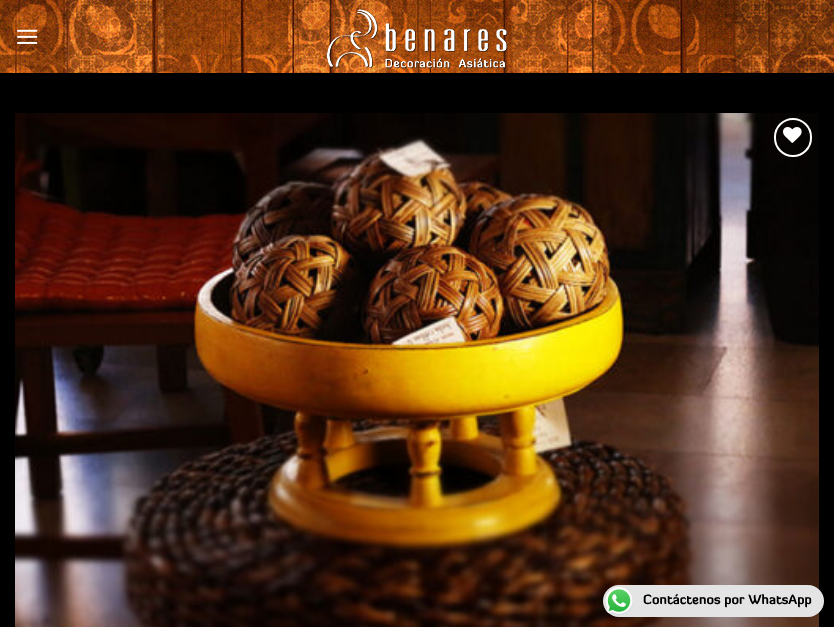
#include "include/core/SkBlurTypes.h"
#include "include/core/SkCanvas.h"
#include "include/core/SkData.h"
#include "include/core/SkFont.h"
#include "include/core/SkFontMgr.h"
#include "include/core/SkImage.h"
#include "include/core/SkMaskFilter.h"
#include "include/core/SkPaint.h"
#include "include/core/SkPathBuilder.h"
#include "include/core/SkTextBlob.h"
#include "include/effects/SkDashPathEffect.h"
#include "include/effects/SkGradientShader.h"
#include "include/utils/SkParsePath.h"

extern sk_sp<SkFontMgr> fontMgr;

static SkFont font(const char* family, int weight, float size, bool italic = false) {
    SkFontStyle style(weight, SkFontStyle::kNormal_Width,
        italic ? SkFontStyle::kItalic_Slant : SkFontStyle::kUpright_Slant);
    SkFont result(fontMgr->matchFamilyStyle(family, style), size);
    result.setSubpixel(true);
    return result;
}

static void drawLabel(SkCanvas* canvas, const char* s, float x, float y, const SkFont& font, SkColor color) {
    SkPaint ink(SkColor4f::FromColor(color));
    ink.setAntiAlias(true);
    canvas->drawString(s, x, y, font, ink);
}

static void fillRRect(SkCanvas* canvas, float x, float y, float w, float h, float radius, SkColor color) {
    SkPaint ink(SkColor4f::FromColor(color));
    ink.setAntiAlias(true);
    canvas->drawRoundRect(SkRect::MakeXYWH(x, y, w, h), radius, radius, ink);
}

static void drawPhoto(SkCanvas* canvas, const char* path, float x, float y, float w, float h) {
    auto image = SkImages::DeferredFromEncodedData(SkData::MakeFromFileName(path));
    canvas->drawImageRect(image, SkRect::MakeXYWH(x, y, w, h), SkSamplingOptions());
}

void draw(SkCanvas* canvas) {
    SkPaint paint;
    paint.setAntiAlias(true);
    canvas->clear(0xFF000000);
    drawPhoto(canvas, "assets/img1.png", 0, 0, 834, 73);
    drawPhoto(canvas, "assets/img2.png", 17, 29, 21, 15);
    drawPhoto(canvas, "assets/img3.png", 326, 9, 182, 60);
    drawPhoto(canvas, "assets/img4.png", 15, 113, 804, 514);
    paint.setStroke(true);
    paint.setStrokeWidth(2);
    paint.setColor(0xFFFFFFFF);
    canvas->drawRoundRect(SkRect::MakeXYWH(775, 119, 36, 37), 18, 18, paint);
    drawPhoto(canvas, "assets/img5.png", 783, 127, 19, 16);
    fillRRect(canvas, 603, 585, 221, 32, 16, 0xFFE4E4E4);
    drawPhoto(canvas, "assets/img6.png", 605, 587, 28, 28);
    SkFont font1 = font("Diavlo", 700, 13);
    drawLabel(canvas, "Contáctenos por WhatsApp", 643, 604, font1, 0xFF000000);
}
